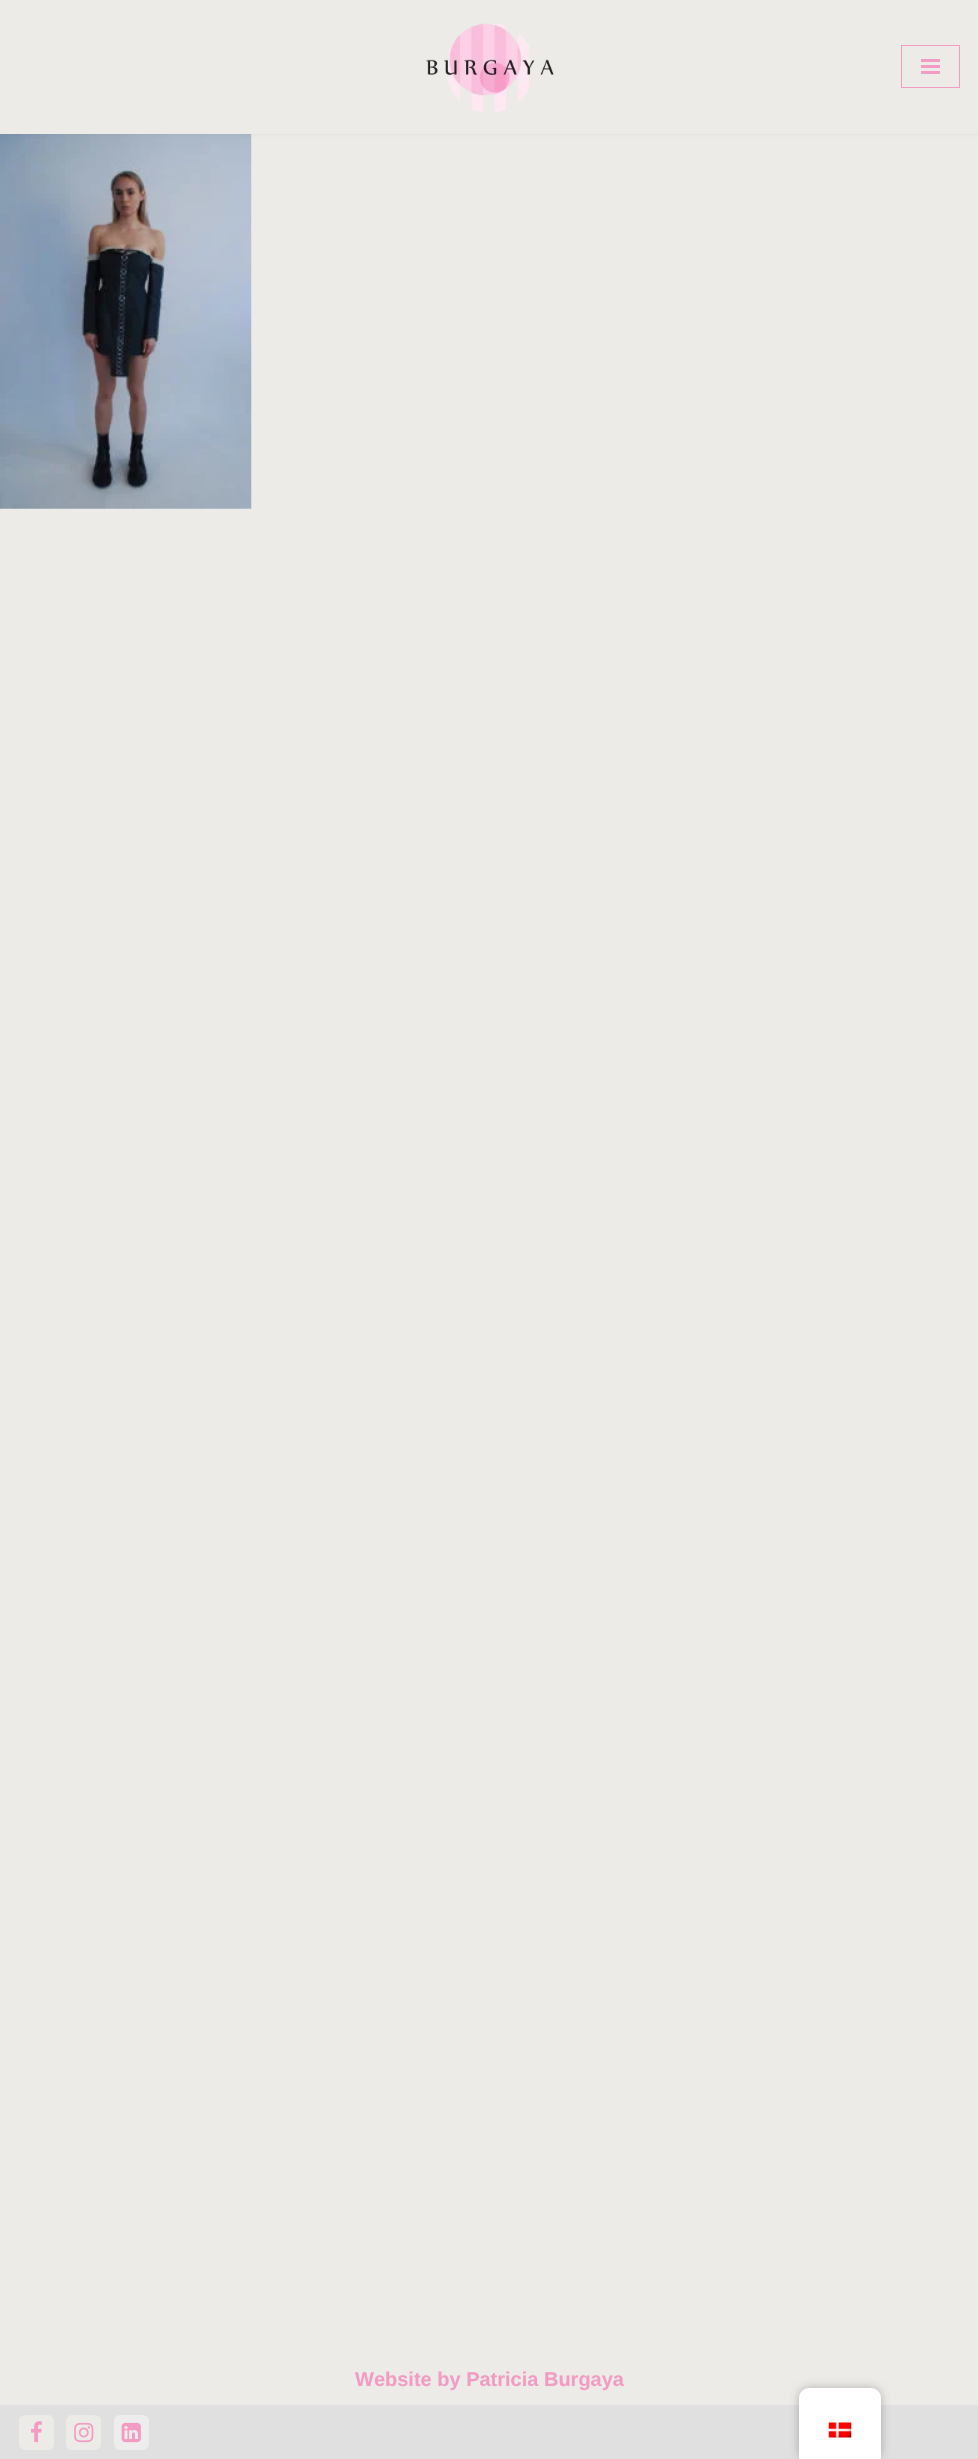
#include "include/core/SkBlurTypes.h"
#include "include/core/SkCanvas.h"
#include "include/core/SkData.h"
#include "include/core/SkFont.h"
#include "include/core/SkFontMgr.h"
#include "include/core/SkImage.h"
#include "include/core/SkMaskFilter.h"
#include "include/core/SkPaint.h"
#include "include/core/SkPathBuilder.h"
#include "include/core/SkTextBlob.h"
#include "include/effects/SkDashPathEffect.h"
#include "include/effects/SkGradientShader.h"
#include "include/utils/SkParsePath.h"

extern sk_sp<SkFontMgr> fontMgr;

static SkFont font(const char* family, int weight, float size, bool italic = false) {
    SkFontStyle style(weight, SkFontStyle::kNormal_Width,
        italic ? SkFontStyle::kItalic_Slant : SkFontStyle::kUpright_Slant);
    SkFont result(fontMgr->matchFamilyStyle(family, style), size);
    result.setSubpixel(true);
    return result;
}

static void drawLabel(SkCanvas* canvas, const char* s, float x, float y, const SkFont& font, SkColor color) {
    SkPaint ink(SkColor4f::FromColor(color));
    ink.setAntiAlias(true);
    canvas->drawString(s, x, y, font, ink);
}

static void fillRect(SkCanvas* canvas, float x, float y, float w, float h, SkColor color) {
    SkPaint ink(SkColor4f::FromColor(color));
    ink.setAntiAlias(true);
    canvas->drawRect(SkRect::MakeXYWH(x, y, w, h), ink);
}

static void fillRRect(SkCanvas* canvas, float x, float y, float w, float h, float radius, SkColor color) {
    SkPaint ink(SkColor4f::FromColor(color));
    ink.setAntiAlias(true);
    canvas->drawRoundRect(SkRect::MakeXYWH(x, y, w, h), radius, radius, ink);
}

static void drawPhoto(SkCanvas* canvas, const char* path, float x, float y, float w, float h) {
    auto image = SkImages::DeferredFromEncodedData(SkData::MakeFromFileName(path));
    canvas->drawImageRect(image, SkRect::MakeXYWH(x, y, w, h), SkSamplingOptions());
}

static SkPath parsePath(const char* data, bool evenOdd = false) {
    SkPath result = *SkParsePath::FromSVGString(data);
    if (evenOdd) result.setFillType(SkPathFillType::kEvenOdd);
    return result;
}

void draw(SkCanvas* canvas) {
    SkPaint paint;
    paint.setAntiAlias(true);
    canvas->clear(0xFFEDEBE8);
    drawPhoto(canvas, "assets/img2.png", 0, 134, 252, 375);
    paint.setColor(0x1A000000);
    paint.setMaskFilter(SkMaskFilter::MakeBlur(kNormal_SkBlurStyle, 2));
    canvas->drawRect(SkRect::MakeXYWH(0, -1, 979, 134), paint);
    paint.setMaskFilter(nullptr);
    fillRect(canvas, 0, 0, 978, 134, 0xFFEDEBE8);
    drawPhoto(canvas, "assets/img1.png", 426, 23, 128, 89);
    paint.setStroke(true);
    paint.setStrokeWidth(1);
    paint.setColor(0xFFF29CC3);
    canvas->drawRect(SkRect::MakeXYWH(901.5f, 45.5f, 58, 42), paint);
    fillRect(canvas, 921, 59, 19, 3, 0xFFF29CC3);
    fillRect(canvas, 921, 65, 19, 3, 0xFFF29CC3);
    fillRect(canvas, 921, 71, 19, 3, 0xFFF29CC3);
    SkFont font1 = font("Liberation Sans", 700, 20);
    drawLabel(canvas, "Website by Patricia Burgaya", 355, 2386, font1, 0xFFF29CC3);
    fillRect(canvas, 0, 2405, 978, 54, 0xFFE1E0E0);
    fillRRect(canvas, 19, 2415, 35, 35, 6, 0xFFEDEBE8);
    drawPhoto(canvas, "assets/img3.png", 31, 2421, 11, 22);
    fillRRect(canvas, 66, 2415, 35, 35, 6, 0xFFEDEBE8);
    drawPhoto(canvas, "assets/img4.png", 74, 2422, 20, 21);
    fillRRect(canvas, 114, 2415, 35, 35, 6, 0xFFEDEDED);
    drawPhoto(canvas, "assets/img5.png", 121, 2422, 20, 21);
    paint.setStroke(false);
    paint.setColor(0x40000000);
    paint.setMaskFilter(SkMaskFilter::MakeBlur(kNormal_SkBlurStyle, 5));
    canvas->drawRoundRect(SkRect::MakeXYWH(799, 2388, 82, 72), 10, 10, paint);
    paint.setMaskFilter(nullptr);
    paint.setColor(0xFFFFFFFF);
    canvas->drawPath(parsePath("M809 2388H871C876.5 2388 881 2392.5 881 2398V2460H799V2398C799 2392.5 803.5 2388 809 2388Z"), paint);
    drawPhoto(canvas, "assets/img6.png", 828, 2422, 24, 16);
}
